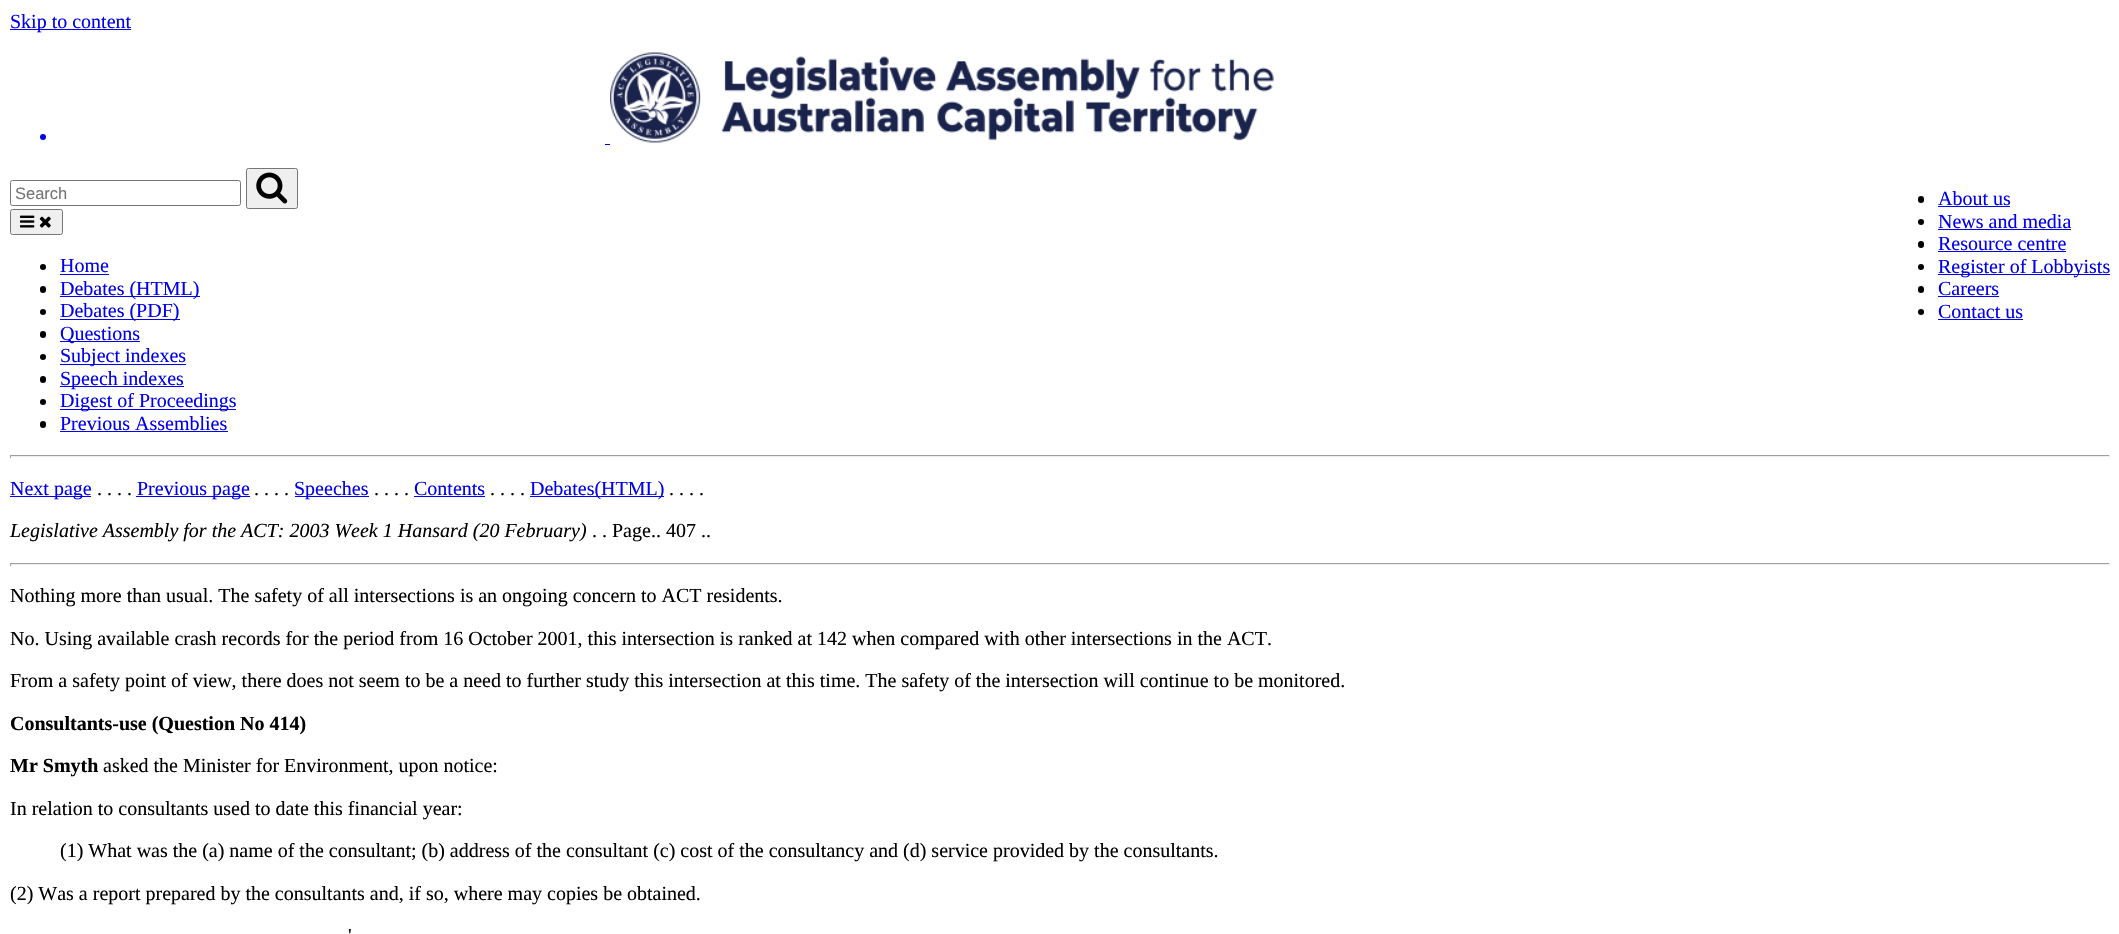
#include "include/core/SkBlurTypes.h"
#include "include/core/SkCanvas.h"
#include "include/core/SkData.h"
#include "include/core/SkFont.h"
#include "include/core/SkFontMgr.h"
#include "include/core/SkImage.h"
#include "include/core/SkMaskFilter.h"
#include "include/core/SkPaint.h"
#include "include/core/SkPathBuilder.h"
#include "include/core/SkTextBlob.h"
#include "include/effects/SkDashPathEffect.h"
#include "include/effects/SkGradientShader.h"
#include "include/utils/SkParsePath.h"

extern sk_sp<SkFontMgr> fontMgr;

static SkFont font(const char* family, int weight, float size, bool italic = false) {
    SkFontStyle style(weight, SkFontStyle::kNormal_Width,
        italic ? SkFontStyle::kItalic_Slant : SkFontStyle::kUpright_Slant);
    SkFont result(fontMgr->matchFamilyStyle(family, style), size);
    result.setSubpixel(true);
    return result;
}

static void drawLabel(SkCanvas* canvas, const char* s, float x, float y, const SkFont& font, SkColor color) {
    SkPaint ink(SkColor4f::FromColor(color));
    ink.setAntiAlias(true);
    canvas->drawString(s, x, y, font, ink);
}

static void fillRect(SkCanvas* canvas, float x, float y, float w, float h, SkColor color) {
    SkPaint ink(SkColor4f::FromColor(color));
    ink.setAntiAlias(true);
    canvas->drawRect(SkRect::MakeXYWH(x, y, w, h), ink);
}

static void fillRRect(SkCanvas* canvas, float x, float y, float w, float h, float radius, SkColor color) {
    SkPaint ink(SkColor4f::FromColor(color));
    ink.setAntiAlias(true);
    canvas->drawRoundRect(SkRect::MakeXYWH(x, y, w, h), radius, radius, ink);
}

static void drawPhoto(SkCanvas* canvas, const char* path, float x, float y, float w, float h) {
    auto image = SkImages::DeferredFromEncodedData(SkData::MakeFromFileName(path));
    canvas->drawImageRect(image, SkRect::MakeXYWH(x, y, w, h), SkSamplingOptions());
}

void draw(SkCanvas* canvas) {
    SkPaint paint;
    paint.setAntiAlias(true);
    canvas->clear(0xFFFFFFFF);
    fillRect(canvas, 10, 29, 121, 1, 0xFF0000EE);
    SkFont font1 = font("Liberation Serif", 400, 20);
    drawLabel(canvas, "Skip to content", 10, 28, font1, 0xFF0000EE);
    paint.setColor(0xFF0000EE);
    canvas->drawCircle(43, 137, 3, paint);
    drawPhoto(canvas, "assets/img1.png", 610, 52, 664, 91);
    fillRect(canvas, 605, 144, 5, 1, 0xFF0000EE);
    paint.setStroke(true);
    paint.setStrokeWidth(1);
    paint.setColor(0xFF767676);
    canvas->drawRoundRect(SkRect::MakeXYWH(10.5f, 180.5f, 230, 25), 2, 2, paint);
    SkFont font2 = font("Liberation Sans", 400, 16.5f);
    drawLabel(canvas, "Search", 15, 199, font2, 0xFF757575);
    paint.setStroke(false);
    paint.setColor(0xFFEFEFEF);
    canvas->drawRoundRect(SkRect::MakeXYWH(246.5f, 168.5f, 51, 40), 2, 2, paint);
    paint.setStroke(true);
    paint.setColor(0xFF767676);
    canvas->drawRoundRect(SkRect::MakeXYWH(246.5f, 168.5f, 51, 40), 2, 2, paint);
    drawPhoto(canvas, "assets/img2.png", 256, 172, 32, 32);
    fillRRect(canvas, 1918, 196, 6, 7, 3, 0xFF000000);
    drawLabel(canvas, "About us", 1938, 205, font1, 0xFF0000EE);
    fillRect(canvas, 1938, 206, 72, 1, 0xFF0000EE);
    paint.setStroke(false);
    paint.setColor(0xFF000000);
    canvas->drawCircle(1921, 222, 3, paint);
    drawLabel(canvas, "News and media", 1938, 228, font1, 0xFF0000EE);
    fillRect(canvas, 1938, 229, 133, 1, 0xFF0000EE);
    fillRRect(canvas, 1918, 241, 6, 7, 3, 0xFF000000);
    drawLabel(canvas, "Resource centre", 1938, 250, font1, 0xFF0000EE);
    fillRect(canvas, 1938, 251, 128, 1, 0xFF0000EE);
    canvas->drawCircle(1921, 267, 3, paint);
    fillRect(canvas, 1938, 274, 172, 1, 0xFF0000EE);
    drawLabel(canvas, "Register of Lobbyists", 1938, 273, font1, 0xFF0000EE);
    fillRRect(canvas, 1918, 286, 6, 7, 3, 0xFF000000);
    drawLabel(canvas, "Careers", 1938, 295, font1, 0xFF0000EE);
    fillRect(canvas, 1938, 296, 61, 1, 0xFF0000EE);
    canvas->drawCircle(1921, 312, 3, paint);
    drawLabel(canvas, "Contact us", 1938, 318, font1, 0xFF0000EE);
    fillRect(canvas, 1938, 319, 85, 1, 0xFF0000EE);
    paint.setColor(0xFFEFEFEF);
    canvas->drawRoundRect(SkRect::MakeXYWH(10.5f, 209.5f, 52, 25), 2, 2, paint);
    paint.setStroke(true);
    paint.setColor(0xFF767676);
    canvas->drawRoundRect(SkRect::MakeXYWH(10.5f, 209.5f, 52, 25), 2, 2, paint);
    drawPhoto(canvas, "assets/img3.png", 20, 215, 15, 13);
    drawPhoto(canvas, "assets/img4.png", 39, 216, 12, 12);
    paint.setStroke(false);
    paint.setColor(0xFF000000);
    canvas->drawCircle(43, 267, 3, paint);
    drawLabel(canvas, "Home", 60, 272, font1, 0xFF0000EE);
    fillRect(canvas, 60, 274, 49, 1, 0xFF0000EE);
    fillRRect(canvas, 40, 286, 6, 7, 3, 0xFF000000);
    fillRect(canvas, 60, 296, 140, 1, 0xFF0000EE);
    drawLabel(canvas, "Debates (HTML)", 60, 295, font1, 0xFF0000EE);
    canvas->drawCircle(43, 312, 3, paint);
    fillRect(canvas, 60, 319, 120, 1, 0xFF0000EE);
    drawLabel(canvas, "Debates (PDF)", 60, 317, font1, 0xFF0000EE);
    fillRRect(canvas, 40, 331, 6, 7, 3, 0xFF000000);
    fillRect(canvas, 60, 341, 80, 1, 0xFF0000EE);
    drawLabel(canvas, "Questions", 60, 340, font1, 0xFF0000EE);
    canvas->drawCircle(43, 357, 3, paint);
    fillRect(canvas, 60, 364, 126, 1, 0xFF0000EE);
    drawLabel(canvas, "Subject indexes", 60, 362, font1, 0xFF0000EE);
    fillRRect(canvas, 40, 376, 6, 7, 3, 0xFF000000);
    fillRect(canvas, 60, 386, 124, 1, 0xFF0000EE);
    drawLabel(canvas, "Speech indexes", 60, 385, font1, 0xFF0000EE);
    canvas->drawCircle(43, 402, 3, paint);
    fillRect(canvas, 60, 409, 176, 1, 0xFF0000EE);
    drawLabel(canvas, "Digest of Proceedings", 60, 407, font1, 0xFF0000EE);
    fillRRect(canvas, 40, 421, 6, 7, 3, 0xFF000000);
    drawLabel(canvas, "Previous Assemblies", 60, 430, font1, 0xFF0000EE);
    fillRect(canvas, 60, 431, 168, 1, 0xFF0000EE);
    fillRect(canvas, 10, 455, 2100, 1, 0xFF9F9F9F);
    fillRect(canvas, 2109, 455, 1, 3, 0xFFEEEEEE);
    fillRect(canvas, 10, 456, 2100, 1, 0xFFEEEEEE);
    fillRect(canvas, 10, 455, 1, 3, 0xFF9F9F9F);
    fillRect(canvas, 10, 496, 81, 1, 0xFF0000EE);
    drawLabel(canvas, "Next page", 10, 495, font1, 0xFF0000EE);
    drawLabel(canvas, ". . . .", 97, 495, font1, 0xFF000000);
    fillRect(canvas, 136, 496, 114, 1, 0xFF0000EE);
    drawLabel(canvas, "Previous page", 137, 495, font1, 0xFF0000EE);
    drawLabel(canvas, ". . . .", 254, 495, font1, 0xFF000000);
    fillRect(canvas, 295, 496, 74, 1, 0xFF0000EE);
    drawLabel(canvas, "Speeches", 294, 495, font1, 0xFF0000EE);
    drawLabel(canvas, ". . . .", 374, 495, font1, 0xFF000000);
    drawLabel(canvas, "Contents", 414, 495, font1, 0xFF0000EE);
    fillRect(canvas, 414, 496, 71, 1, 0xFF0000EE);
    drawLabel(canvas, ". . . .", 490, 495, font1, 0xFF000000);
    fillRect(canvas, 530, 496, 134, 1, 0xFF0000EE);
    drawLabel(canvas, "Debates(HTML)", 530, 495, font1, 0xFF0000EE);
    drawLabel(canvas, ". . . .", 669, 495, font1, 0xFF000000);
    SkFont font3 = font("Liberation Serif", 400, 20, true);
    drawLabel(canvas, "Legislative Assembly for the ACT: 2003 Week 1 Hansard (20 February)", 10, 537, font3, 0xFF000000);
    drawLabel(canvas, ". . Page.. 407 ..", 592, 537, font1, 0xFF000000);
    fillRect(canvas, 10, 563, 2100, 1, 0xFF9F9F9F);
    fillRect(canvas, 2109, 563, 1, 3, 0xFFEEEEEE);
    fillRect(canvas, 10, 564, 2100, 1, 0xFFEEEEEE);
    fillRect(canvas, 10, 563, 1, 3, 0xFF9F9F9F);
    drawLabel(canvas, "Nothing more than usual. The safety of all intersections is an ongoing concern to ACT residents.", 10, 602, font1, 0xFF000000);
    drawLabel(canvas, "No. Using available crash records for the period from 16 October 2001, this intersection is ranked at 142 when compared with other intersections in the ACT.", 10, 645, font1, 0xFF000000);
    drawLabel(canvas, "From a safety point of view, there does not seem to be a need to further study this intersection at this time. The safety of the intersection will continue to be monitored.", 10, 687, font1, 0xFF000000);
    SkFont font4 = font("Liberation Serif", 700, 20);
    drawLabel(canvas, "Consultants-use (Question No 414)", 10, 730, font4, 0xFF000000);
    drawLabel(canvas, "Mr Smyth", 10, 772, font4, 0xFF000000);
    drawLabel(canvas, "asked the Minister for Environment, upon notice:", 103, 772, font1, 0xFF000000);
    drawLabel(canvas, "In relation to consultants used to date this financial year:", 10, 815, font1, 0xFF000000);
    drawLabel(canvas, "(1) What was the (a) name of the consultant; (b) address of the consultant (c) cost of the consultancy and (d) service provided by the consultants.", 60, 857, font1, 0xFF000000);
    drawLabel(canvas, "(2) Was a report prepared by the consultants and, if so, where may copies be obtained.", 10, 900, font1, 0xFF000000);
    drawLabel(canvas, "'", 348, 942, font1, 0xFF000000);
}
